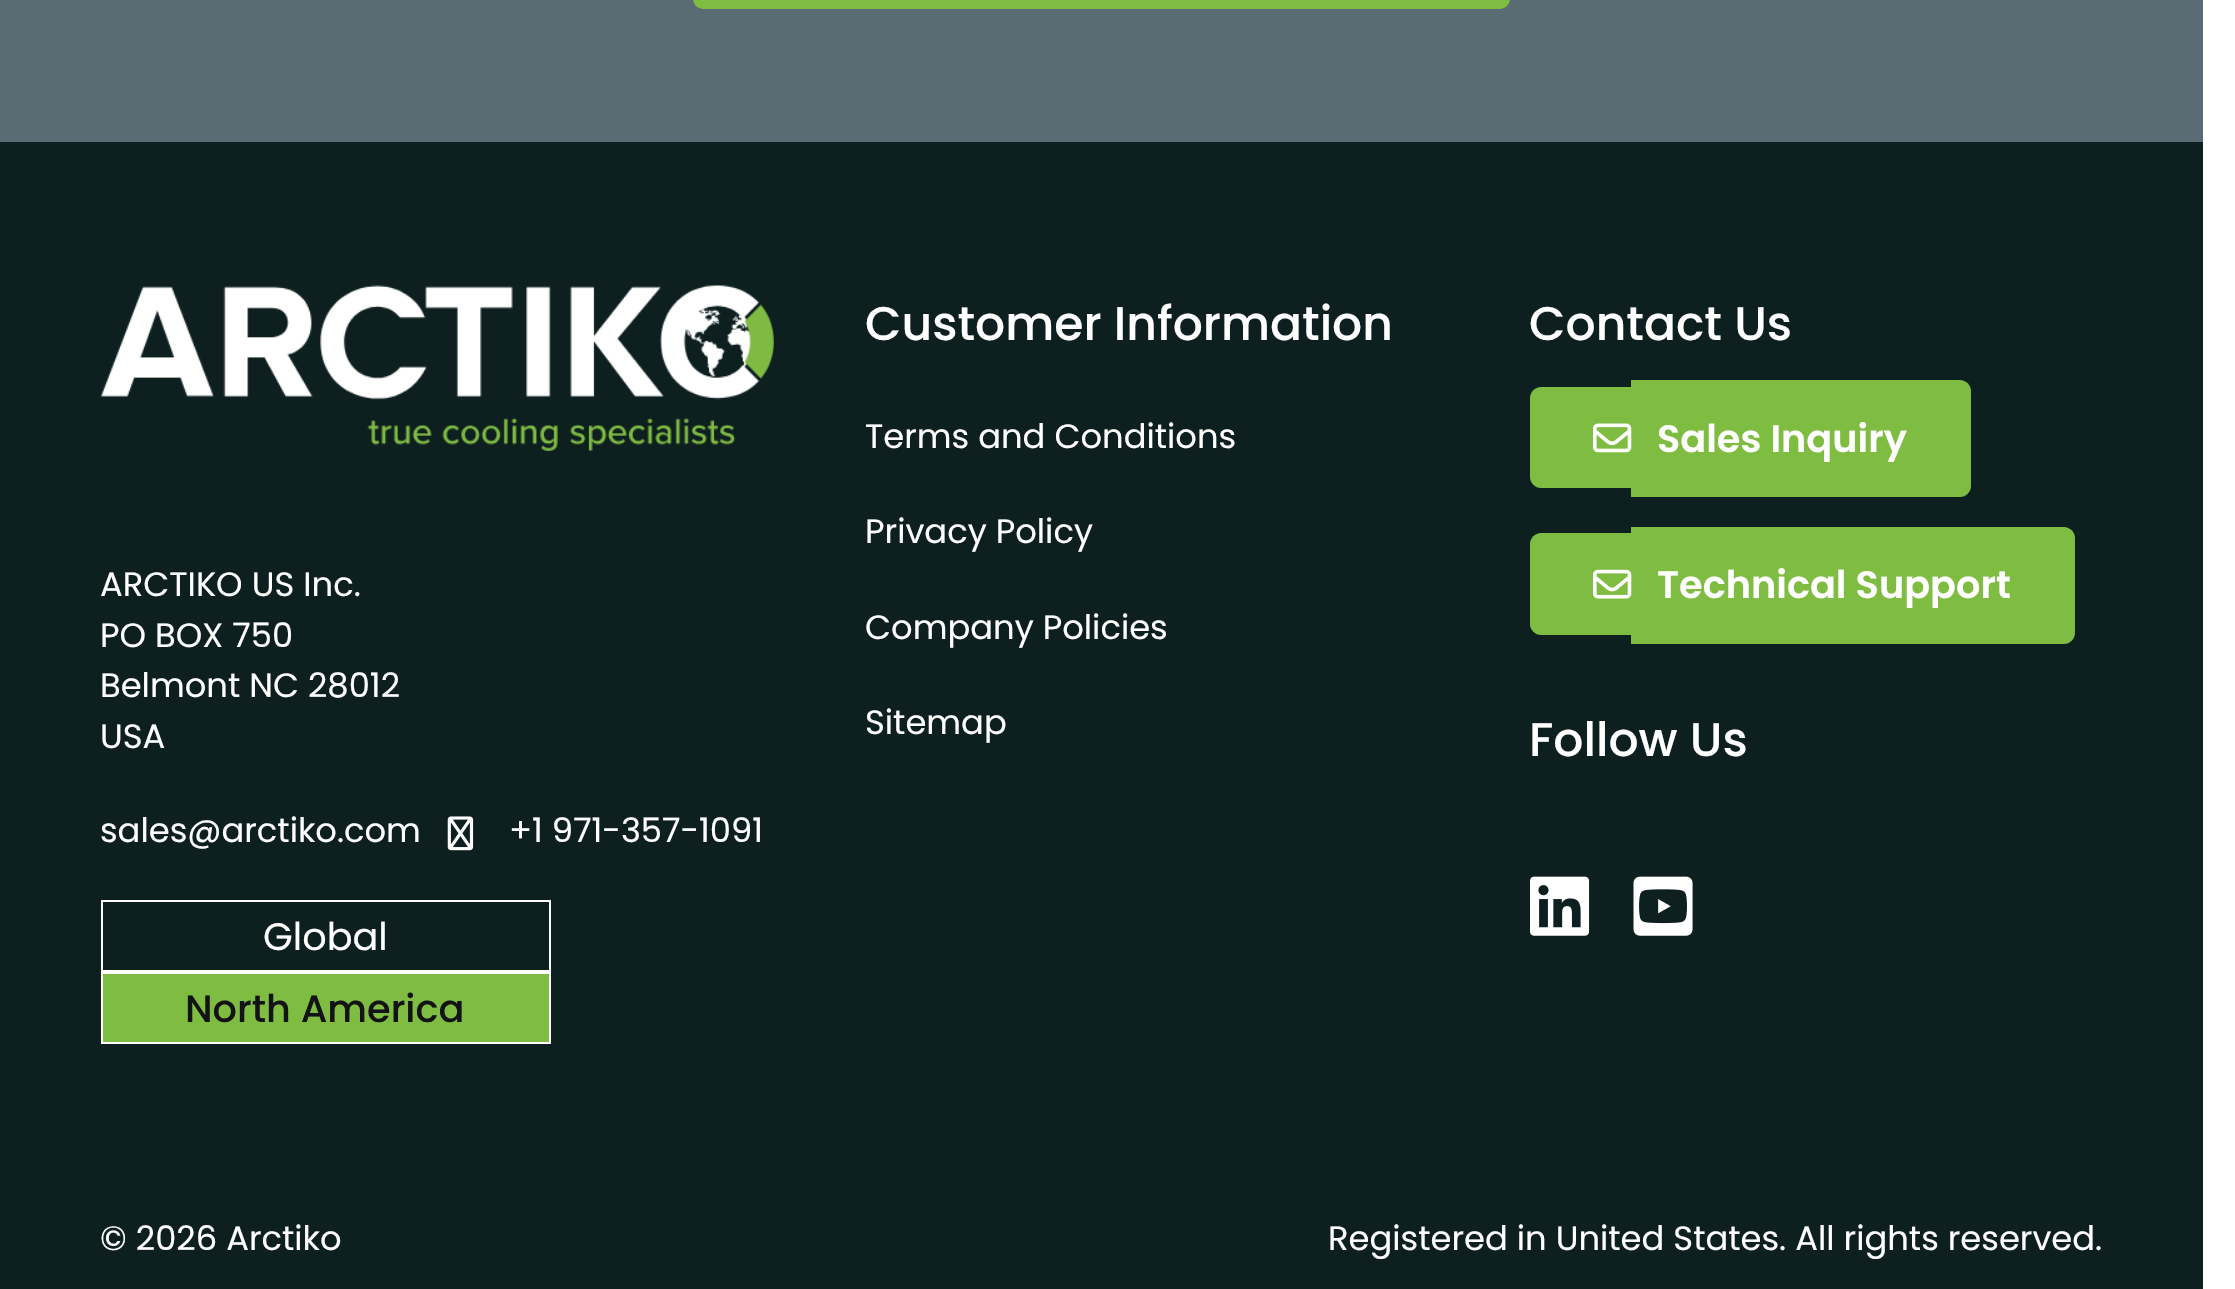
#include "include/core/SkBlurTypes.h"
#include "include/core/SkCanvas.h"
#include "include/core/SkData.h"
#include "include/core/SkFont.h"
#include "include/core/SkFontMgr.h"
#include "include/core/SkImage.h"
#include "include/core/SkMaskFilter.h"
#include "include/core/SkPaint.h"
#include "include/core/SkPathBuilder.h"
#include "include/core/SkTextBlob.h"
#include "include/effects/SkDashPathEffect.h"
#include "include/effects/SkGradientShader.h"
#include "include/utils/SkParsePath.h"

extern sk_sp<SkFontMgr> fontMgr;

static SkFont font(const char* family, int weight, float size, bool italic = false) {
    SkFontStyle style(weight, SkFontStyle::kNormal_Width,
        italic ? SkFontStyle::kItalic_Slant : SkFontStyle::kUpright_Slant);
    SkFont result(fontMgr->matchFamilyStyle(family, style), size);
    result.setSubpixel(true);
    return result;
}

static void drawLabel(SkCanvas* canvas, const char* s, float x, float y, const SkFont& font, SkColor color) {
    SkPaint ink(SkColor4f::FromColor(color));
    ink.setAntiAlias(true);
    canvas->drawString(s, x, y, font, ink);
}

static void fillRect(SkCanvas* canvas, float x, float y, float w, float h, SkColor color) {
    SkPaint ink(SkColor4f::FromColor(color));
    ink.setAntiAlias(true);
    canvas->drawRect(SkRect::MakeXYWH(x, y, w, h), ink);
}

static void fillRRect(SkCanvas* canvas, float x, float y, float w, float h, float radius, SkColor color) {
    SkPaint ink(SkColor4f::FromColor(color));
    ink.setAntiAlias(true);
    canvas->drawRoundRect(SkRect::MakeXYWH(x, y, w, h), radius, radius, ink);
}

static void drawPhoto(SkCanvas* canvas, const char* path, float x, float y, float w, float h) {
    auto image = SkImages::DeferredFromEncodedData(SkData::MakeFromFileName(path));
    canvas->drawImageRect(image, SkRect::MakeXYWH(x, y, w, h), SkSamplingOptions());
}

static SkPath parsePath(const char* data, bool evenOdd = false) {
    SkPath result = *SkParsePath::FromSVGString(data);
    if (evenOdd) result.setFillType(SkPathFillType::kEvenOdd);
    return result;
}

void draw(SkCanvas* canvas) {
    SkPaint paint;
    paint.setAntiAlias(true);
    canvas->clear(0xFFFFFFFF);
    fillRect(canvas, 0, 0, 2203, 142, 0xFF596B73);
    fillRRect(canvas, 693, -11, 817, 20, 11, 0xFF7EBC42);
    fillRect(canvas, 0, 142, 2203, 1147, 0xFF0E1F20);
    drawPhoto(canvas, "assets/img1.png", 101, 285, 673, 166);
    SkFont font1 = font("Poppins", 400, 33.75f);
    drawLabel(canvas, "ARCTIKO US Inc.", 100, 596, font1, 0xFFFFFFFF);
    drawLabel(canvas, "PO BOX 750", 100, 647, font1, 0xFFFFFFFF);
    drawLabel(canvas, "Belmont NC 28012", 100, 697, font1, 0xFFFFFFFF);
    drawLabel(canvas, "USA", 100, 748, font1, 0xFFFFFFFF);
    drawLabel(canvas, "sales@arctiko.com", 100, 842, font1, 0xFFFFFFFF);
    drawPhoto(canvas, "assets/img2.png", 447, 816, 27, 35);
    drawLabel(canvas, "+1 971-357-1091", 509, 842, font1, 0xFFFFFFFF);
    paint.setStroke(true);
    paint.setStrokeWidth(2);
    paint.setColor(0xFFFFFFFF);
    canvas->drawRect(SkRect::MakeXYWH(102, 901, 448, 70), paint);
    SkFont font2 = font("Poppins", 400, 38.25f);
    drawLabel(canvas, "Global", 263, 950, font2, 0xFFFFFFFF);
    paint.setStroke(false);
    paint.setColor(0xFF7EBC42);
    canvas->drawRect(SkRect::MakeXYWH(102, 973, 448, 70), paint);
    paint.setStroke(true);
    paint.setColor(0xFFFFFFFF);
    canvas->drawRect(SkRect::MakeXYWH(102, 973, 448, 70), paint);
    SkFont font3 = font("Poppins", 500, 38.25f);
    drawLabel(canvas, "North America", 185, 1022, font3, 0xFF131315);
    SkFont font4 = font("Poppins", 500, 47.25f);
    drawLabel(canvas, "Customer Information", 865, 340, font4, 0xFFFFFFFF);
    drawLabel(canvas, "Terms and Conditions", 865, 448, font1, 0xFFFFFFFF);
    drawLabel(canvas, "Privacy Policy", 865, 543, font1, 0xFFFFFFFF);
    drawLabel(canvas, "Company Policies", 865, 639, font1, 0xFFFFFFFF);
    drawLabel(canvas, "Sitemap", 865, 734, font1, 0xFFFFFFFF);
    drawLabel(canvas, "Contact Us", 1529, 340, font4, 0xFFFFFFFF);
    paint.setStroke(false);
    paint.setColor(0xFF7EBC42);
    canvas->drawPath(parsePath("M1541 387H1631V488H1541C1535 488 1530 483 1530 477V398C1530 392 1535 387 1541 387Z"), paint);
    canvas->drawPath(parsePath("M1631 380H1960C1966 380 1971 385 1971 391V486C1971 492 1966 497 1960 497H1631Z"), paint);
    drawPhoto(canvas, "assets/img3.png", 1593, 423, 39, 30);
    SkFont font5 = font("Poppins", 600, 38.25f);
    drawLabel(canvas, "Sales Inquiry", 1657, 452, font5, 0xFFFFFFFF);
    canvas->drawPath(parsePath("M1541 533H1631V635H1541C1535 635 1530 630 1530 624V544C1530 538 1535 533 1541 533Z"), paint);
    canvas->drawPath(parsePath("M1631 527H2064C2070 527 2075 532 2075 538V633C2075 639 2070 644 2064 644H1631Z"), paint);
    drawPhoto(canvas, "assets/img4.png", 1593, 569, 39, 30);
    drawLabel(canvas, "Technical Support", 1657, 598, font5, 0xFFFFFFFF);
    drawLabel(canvas, "Follow Us", 1529, 756, font4, 0xFFFFFFFF);
    drawPhoto(canvas, "assets/img5.png", 1530, 876, 60, 60);
    drawPhoto(canvas, "assets/img6.png", 1633, 876, 60, 60);
    drawLabel(canvas, "© 2026 Arctiko", 100, 1250, font1, 0xFFFFFFFF);
    drawLabel(canvas, "Registered in United States. All rights reserved.", 1328, 1250, font1, 0xFFFFFFFF);
}
